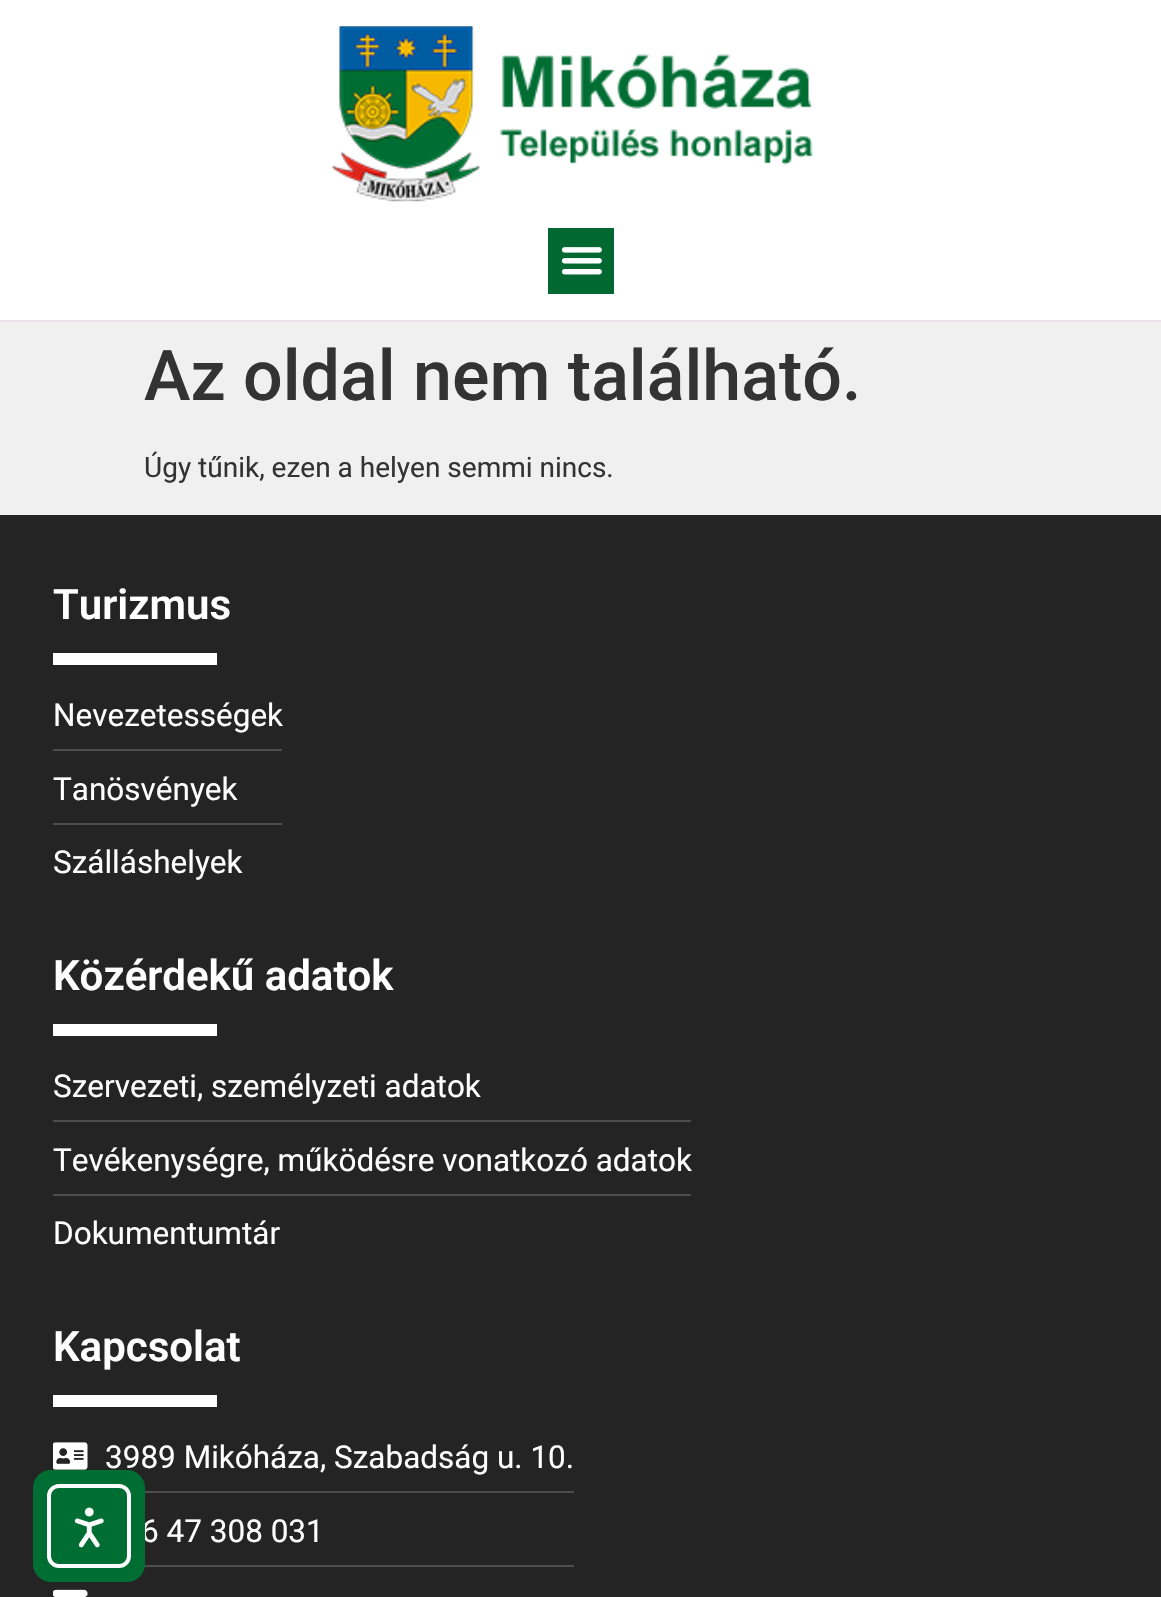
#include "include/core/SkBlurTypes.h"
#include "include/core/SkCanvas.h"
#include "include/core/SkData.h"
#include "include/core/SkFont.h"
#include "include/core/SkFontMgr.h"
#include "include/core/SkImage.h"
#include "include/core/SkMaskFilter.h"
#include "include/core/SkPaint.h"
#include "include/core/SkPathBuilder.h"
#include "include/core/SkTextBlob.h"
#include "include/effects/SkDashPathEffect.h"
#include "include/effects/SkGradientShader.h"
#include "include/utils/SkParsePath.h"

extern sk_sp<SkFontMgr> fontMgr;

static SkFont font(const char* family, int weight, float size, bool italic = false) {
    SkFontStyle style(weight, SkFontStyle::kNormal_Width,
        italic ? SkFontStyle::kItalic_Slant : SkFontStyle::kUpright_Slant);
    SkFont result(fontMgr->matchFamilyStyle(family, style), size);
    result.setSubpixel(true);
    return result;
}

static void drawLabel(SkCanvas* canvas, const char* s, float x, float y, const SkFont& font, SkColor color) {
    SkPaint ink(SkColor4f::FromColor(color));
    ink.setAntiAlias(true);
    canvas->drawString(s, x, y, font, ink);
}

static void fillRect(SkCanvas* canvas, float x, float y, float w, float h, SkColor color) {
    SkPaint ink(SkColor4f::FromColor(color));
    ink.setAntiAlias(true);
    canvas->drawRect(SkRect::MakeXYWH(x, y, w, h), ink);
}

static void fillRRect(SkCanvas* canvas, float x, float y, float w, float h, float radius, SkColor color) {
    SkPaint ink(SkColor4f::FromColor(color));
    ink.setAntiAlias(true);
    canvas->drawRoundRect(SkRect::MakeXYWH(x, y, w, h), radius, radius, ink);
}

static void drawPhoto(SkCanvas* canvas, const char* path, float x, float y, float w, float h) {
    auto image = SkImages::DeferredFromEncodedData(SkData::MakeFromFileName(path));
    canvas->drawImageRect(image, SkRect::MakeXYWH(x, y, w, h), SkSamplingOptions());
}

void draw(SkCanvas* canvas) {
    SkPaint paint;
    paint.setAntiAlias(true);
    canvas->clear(0xFFF0F0F1);
    fillRect(canvas, 0, 0, 1161, 320, 0xFFFFFFFF);
    fillRect(canvas, 0, 320, 1161, 2, 0xFFE9DEE9);
    drawPhoto(canvas, "assets/img1.png", 332, 26, 481, 176);
    fillRect(canvas, 548, 228, 66, 66, 0xFF006D33);
    fillRRect(canvas, 548, 228, 66, 66, 5, 0xFF006830);
    drawPhoto(canvas, "assets/img2.png", 561, 247, 41, 28);
    SkFont font1 = font("Roboto", 500, 70);
    drawLabel(canvas, "Az oldal nem található.", 144, 400, font1, 0xFF333333);
    SkFont font2 = font("Roboto", 400, 28);
    drawLabel(canvas, "Úgy tűnik, ezen a helyen semmi nincs.", 144, 477, font2, 0xFF333333);
    fillRect(canvas, 0, 515, 1161, 1082, 0xFF242424);
    SkFont font3 = font("Roboto", 600, 42);
    drawLabel(canvas, "Turizmus", 53, 619, font3, 0xFFFFFFFF);
    fillRect(canvas, 53, 653, 164, 12, 0xFFFFFFFF);
    SkFont font4 = font("Roboto", 400, 31.5f);
    drawLabel(canvas, "Nevezetességek", 53, 726, font4, 0xFFFFFFFF);
    fillRect(canvas, 53, 749, 229, 2, 0xFF4D4D4E);
    drawLabel(canvas, "Tanösvények", 53, 800, font4, 0xFFFFFFFF);
    fillRect(canvas, 53, 823, 229, 2, 0xFF4D4D4E);
    drawLabel(canvas, "Szálláshelyek", 53, 873, font4, 0xFFFFFFFF);
    drawLabel(canvas, "Közérdekű adatok", 53, 990, font3, 0xFFFFFFFF);
    fillRect(canvas, 53, 1024, 164, 12, 0xFFFFFFFF);
    drawLabel(canvas, "Szervezeti, személyzeti adatok", 53, 1097, font4, 0xFFFFFFFF);
    fillRect(canvas, 53, 1120, 638, 2, 0xFF4D4D4E);
    drawLabel(canvas, "Tevékenységre, működésre vonatkozó adatok", 53, 1171, font4, 0xFFFFFFFF);
    fillRect(canvas, 53, 1194, 638, 2, 0xFF4D4D4E);
    drawLabel(canvas, "Dokumentumtár", 53, 1244, font4, 0xFFFFFFFF);
    drawLabel(canvas, "Kapcsolat", 53, 1361, font3, 0xFFFFFFFF);
    fillRect(canvas, 53, 1395, 164, 12, 0xFFFFFFFF);
    drawPhoto(canvas, "assets/img3.png", 53, 1442, 35, 28);
    drawLabel(canvas, "3989 Mikóháza, Szabadság u. 10.", 105, 1468, font4, 0xFFFFFFFF);
    fillRect(canvas, 145, 1491, 429, 2, 0xFF4D4D4E);
    drawLabel(canvas, "6 47 308 031", 141, 1542, font4, 0xFFFFFFFF);
    fillRect(canvas, 144, 1565, 430, 2, 0xFF4D4D4E);
    drawPhoto(canvas, "assets/img4.png", 53, 1589, 35, 8);
    fillRRect(canvas, 33, 1470, 112, 112, 18, 0xFF006D33);
    paint.setStroke(true);
    paint.setStrokeWidth(4);
    paint.setColor(0xFFFFFFFF);
    canvas->drawRoundRect(SkRect::MakeXYWH(49, 1486, 80, 80), 10, 10, paint);
    drawPhoto(canvas, "assets/img5.png", 74, 1507, 30, 41);
}
